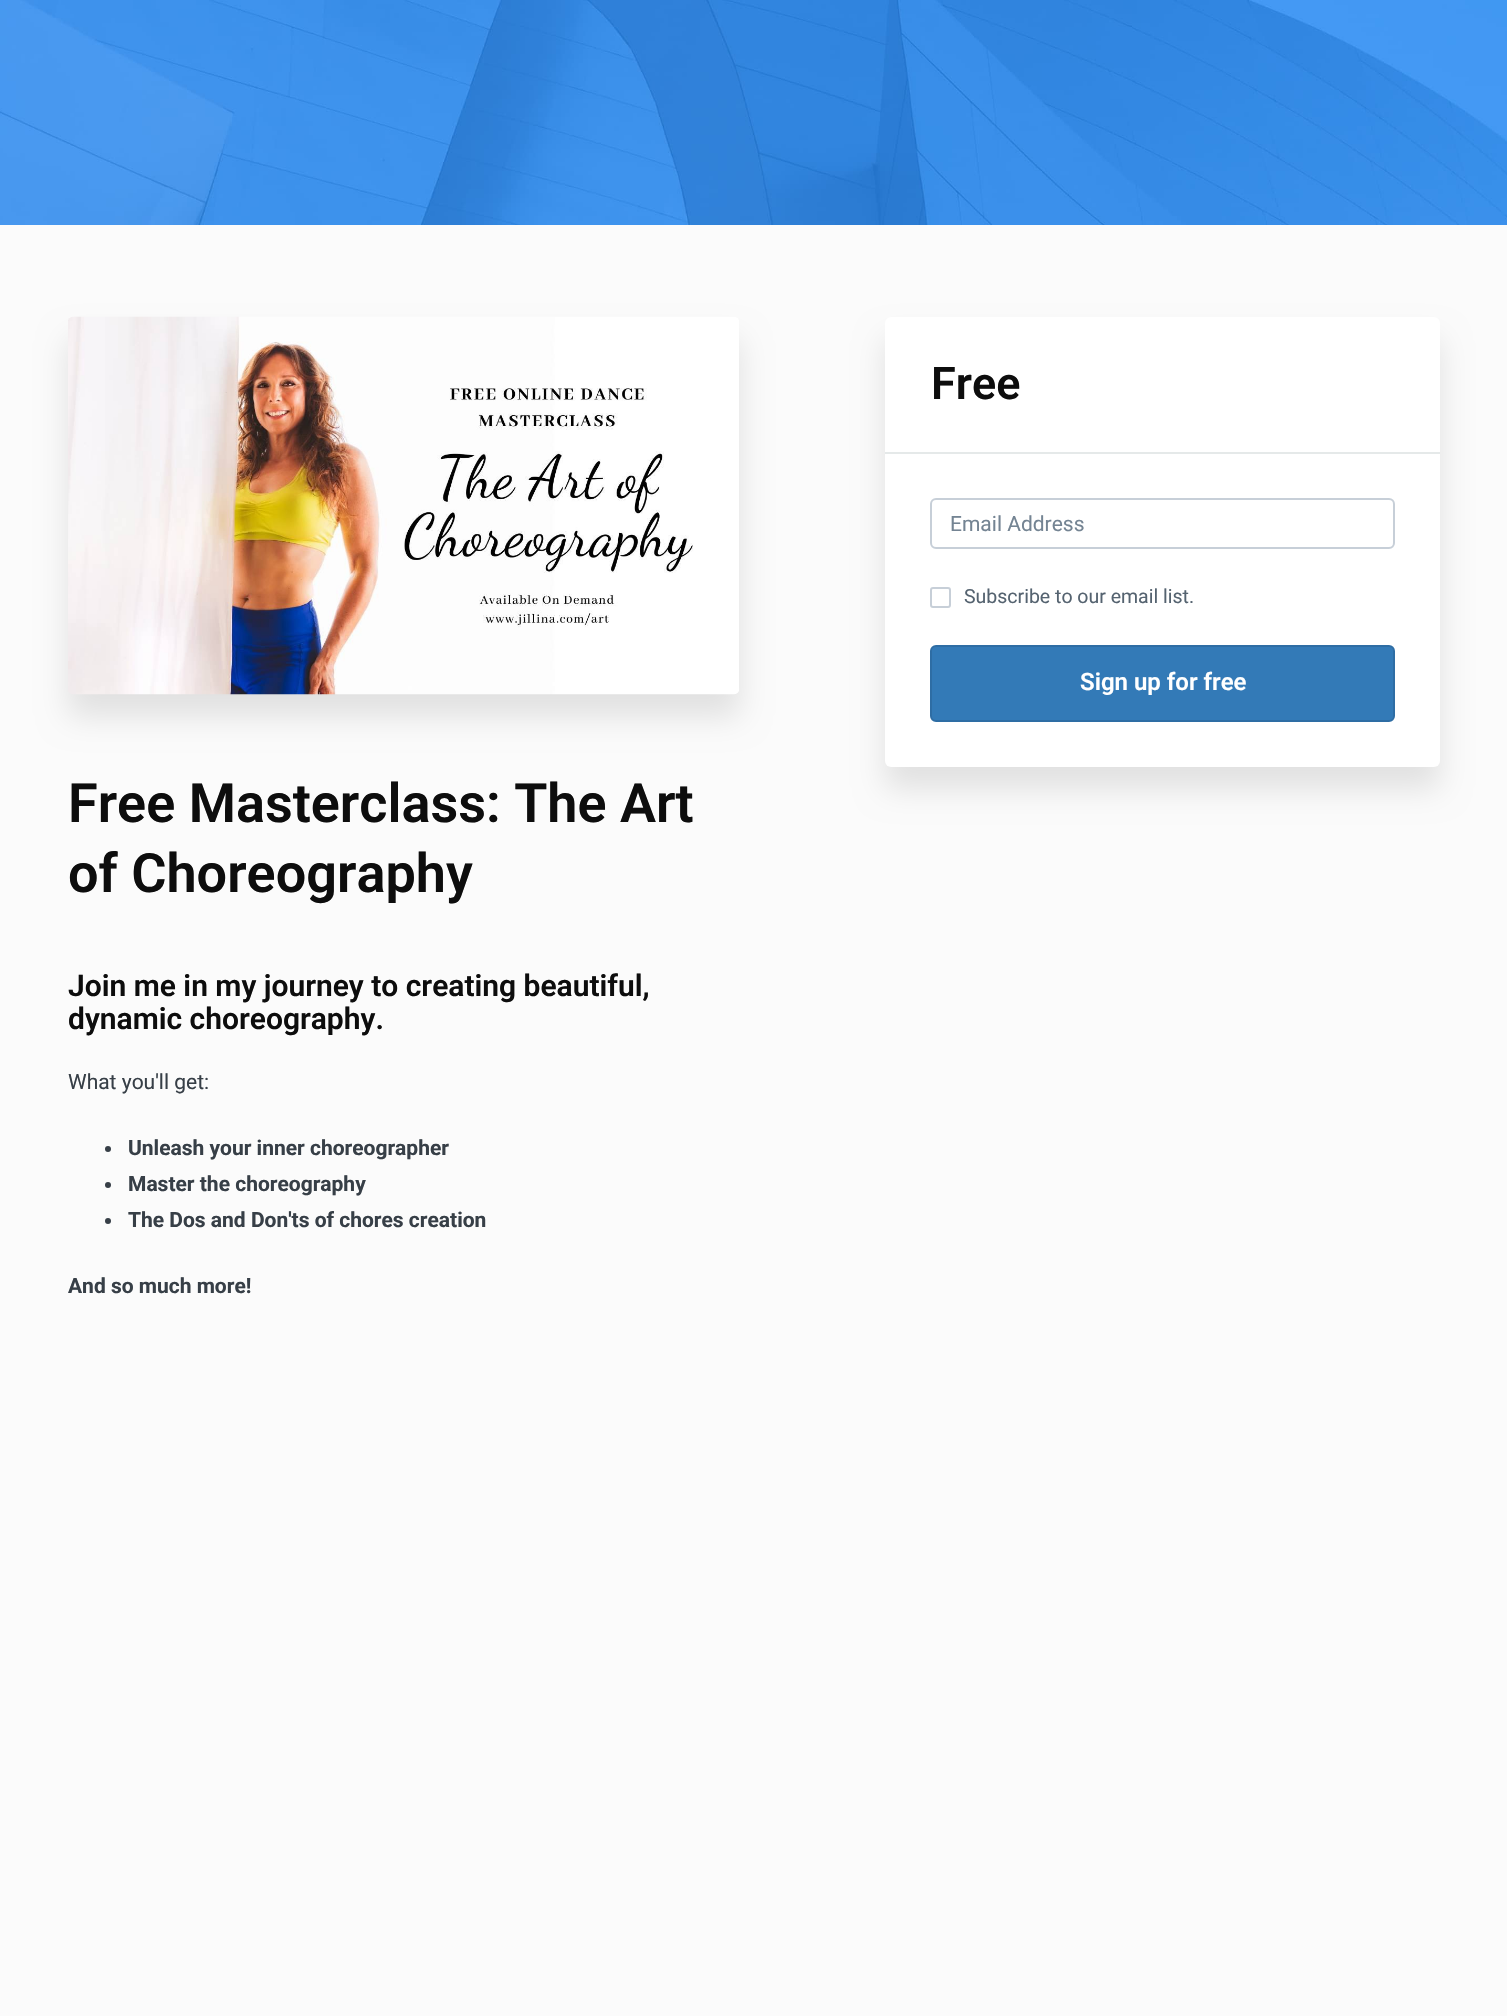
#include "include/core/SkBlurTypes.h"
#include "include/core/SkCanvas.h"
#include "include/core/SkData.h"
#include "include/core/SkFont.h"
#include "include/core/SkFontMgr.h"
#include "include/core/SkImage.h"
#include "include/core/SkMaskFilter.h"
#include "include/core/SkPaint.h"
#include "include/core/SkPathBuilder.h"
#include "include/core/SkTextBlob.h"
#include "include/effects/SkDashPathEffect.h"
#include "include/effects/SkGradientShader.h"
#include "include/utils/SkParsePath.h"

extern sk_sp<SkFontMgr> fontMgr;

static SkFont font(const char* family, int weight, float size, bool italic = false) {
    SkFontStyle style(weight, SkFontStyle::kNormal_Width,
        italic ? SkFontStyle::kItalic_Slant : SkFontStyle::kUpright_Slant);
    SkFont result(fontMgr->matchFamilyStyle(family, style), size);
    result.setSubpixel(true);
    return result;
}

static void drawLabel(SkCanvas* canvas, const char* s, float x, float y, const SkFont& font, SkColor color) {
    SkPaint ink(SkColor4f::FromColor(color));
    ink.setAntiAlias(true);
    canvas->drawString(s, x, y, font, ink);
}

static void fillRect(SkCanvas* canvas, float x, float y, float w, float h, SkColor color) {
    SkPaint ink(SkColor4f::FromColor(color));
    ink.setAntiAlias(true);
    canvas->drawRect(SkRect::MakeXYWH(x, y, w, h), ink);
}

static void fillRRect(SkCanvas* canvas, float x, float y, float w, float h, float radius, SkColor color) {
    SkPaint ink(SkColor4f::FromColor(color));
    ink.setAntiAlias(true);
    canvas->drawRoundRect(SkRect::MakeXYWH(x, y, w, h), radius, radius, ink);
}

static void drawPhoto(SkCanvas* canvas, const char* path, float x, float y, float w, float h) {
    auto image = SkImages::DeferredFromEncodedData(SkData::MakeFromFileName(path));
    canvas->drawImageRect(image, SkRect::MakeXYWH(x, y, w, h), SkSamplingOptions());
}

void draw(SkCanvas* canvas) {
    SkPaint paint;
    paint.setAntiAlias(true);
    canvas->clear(0xFFFBFBFB);
    drawPhoto(canvas, "assets/img1.png", 0, 0, 1507, 225);
    paint.setColor(0x1A000000);
    paint.setMaskFilter(SkMaskFilter::MakeBlur(kNormal_SkBlurStyle, 15));
    canvas->drawRoundRect(SkRect::MakeXYWH(885, 339, 555, 450), 6, 6, paint);
    paint.setMaskFilter(nullptr);
    fillRRect(canvas, 885, 317, 555, 450, 6, 0xFFFFFFFF);
    fillRect(canvas, 885, 452, 555, 2, 0xFFE5E9E9);
    SkFont font1 = font("Roboto", 600, 45);
    drawLabel(canvas, "Free", 931, 399, font1, 0xFF0D0D0D);
    paint.setStroke(true);
    paint.setStrokeWidth(2);
    paint.setColor(0xFFC7CFD8);
    canvas->drawRoundRect(SkRect::MakeXYWH(931, 499, 463, 49), 5, 5, paint);
    SkFont font2 = font("Roboto", 400, 21);
    drawLabel(canvas, "Email Address", 950, 531, font2, 0xFF748493);
    canvas->drawRoundRect(SkRect::MakeXYWH(931, 588, 19, 19), 2, 2, paint);
    SkFont font3 = font("Roboto", 400, 19.5f);
    drawLabel(canvas, "Subscribe to our email list.", 964, 603, font3, 0xFF556370);
    paint.setStroke(false);
    paint.setColor(0xFF337AB7);
    canvas->drawRoundRect(SkRect::MakeXYWH(931, 646, 463, 75), 5, 5, paint);
    paint.setStroke(true);
    paint.setColor(0xFF2E6DA4);
    canvas->drawRoundRect(SkRect::MakeXYWH(931, 646, 463, 75), 5, 5, paint);
    SkFont font4 = font("Roboto", 600, 24);
    drawLabel(canvas, "Sign up for free", 1080, 690, font4, 0xFFFFFFFF);
    paint.setStroke(false);
    paint.setColor(0x1A000000);
    paint.setMaskFilter(SkMaskFilter::MakeBlur(kNormal_SkBlurStyle, 15));
    canvas->drawRoundRect(SkRect::MakeXYWH(68, 339, 672, 378), 6, 6, paint);
    paint.setMaskFilter(nullptr);
    drawPhoto(canvas, "assets/img2.png", 68, 316, 671, 379);
    SkFont font5 = font("Roboto", 600, 54);
    drawLabel(canvas, "Free Masterclass: The Art", 68, 822, font5, 0xFF0D0D0D);
    drawLabel(canvas, "of Choreography", 68, 892, font5, 0xFF0D0D0D);
    SkFont font6 = font("Roboto", 600, 30);
    drawLabel(canvas, "Join me in my journey to creating beautiful,", 68, 996, font6, 0xFF0D0D0D);
    drawLabel(canvas, "dynamic choreography.", 68, 1029, font6, 0xFF0D0D0D);
    drawLabel(canvas, "What you'll get:", 68, 1089, font2, 0xFF373F47);
    paint.setColor(0xFF373F47);
    canvas->drawCircle(108, 1149, 3, paint);
    SkFont font7 = font("Roboto", 700, 21);
    drawLabel(canvas, "Unleash your inner choreographer", 128, 1155, font7, 0xFF373F47);
    canvas->drawCircle(108, 1185, 3, paint);
    drawLabel(canvas, "Master the choreography", 128, 1191, font7, 0xFF373F47);
    canvas->drawCircle(108, 1221, 3, paint);
    drawLabel(canvas, "The Dos and Don'ts of chores creation", 128, 1227, font7, 0xFF373F47);
    drawLabel(canvas, "And so much more!", 68, 1293, font7, 0xFF373F47);
}
